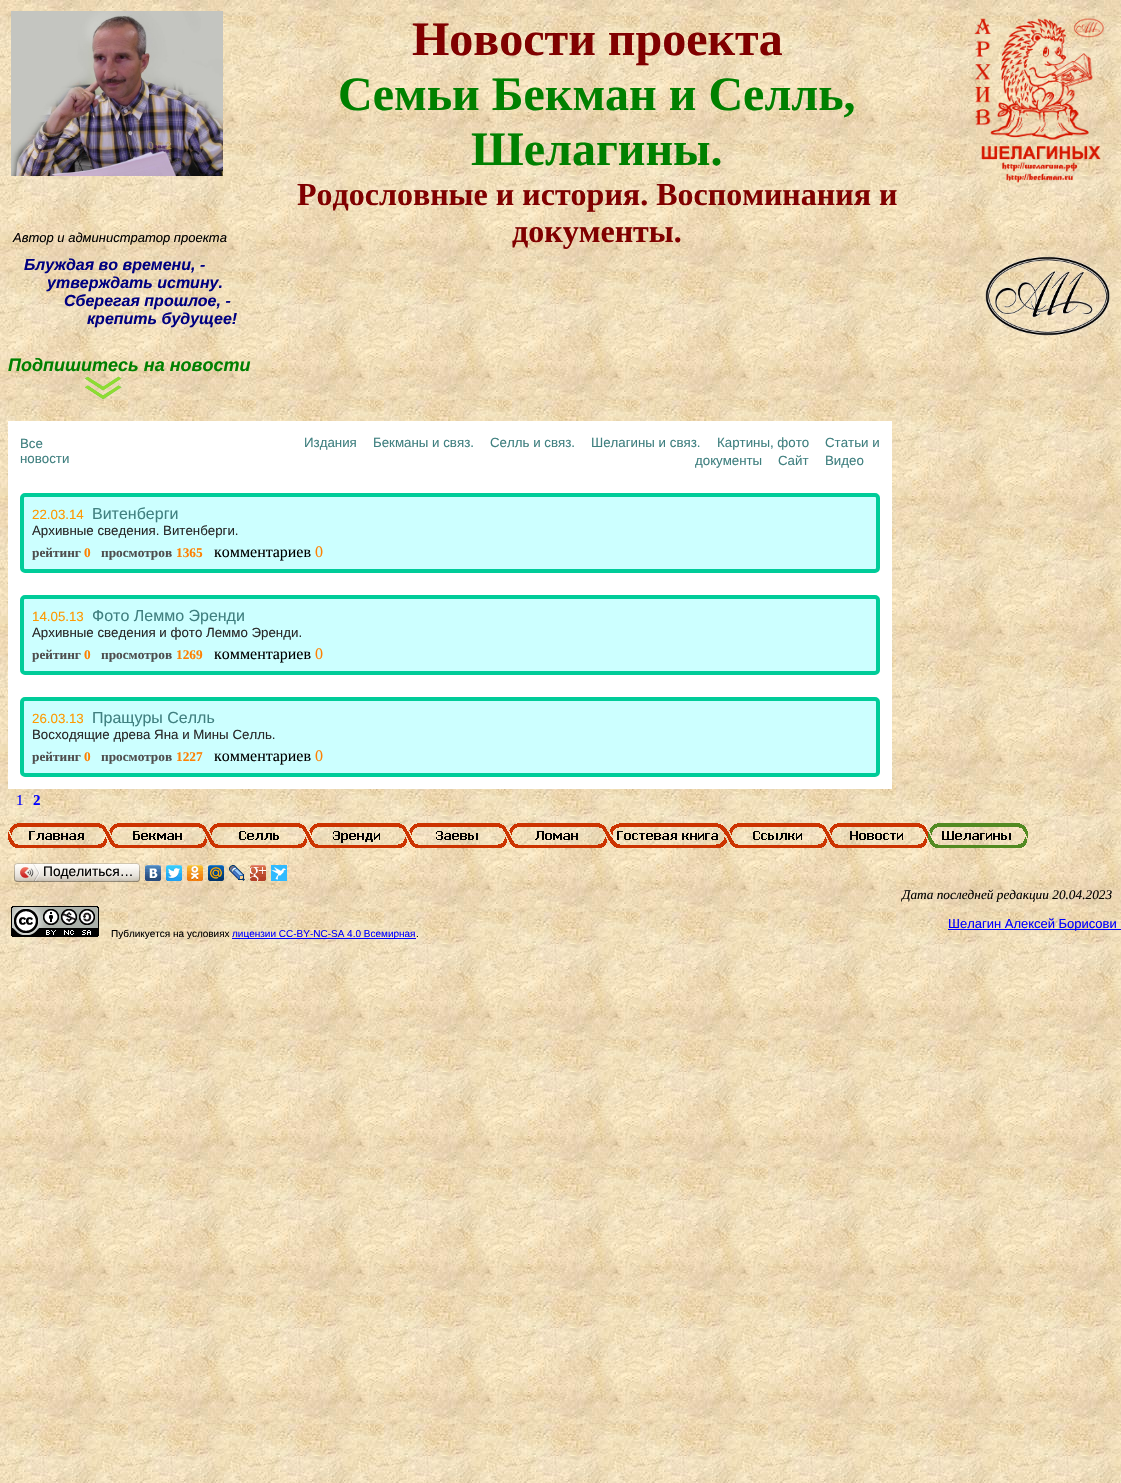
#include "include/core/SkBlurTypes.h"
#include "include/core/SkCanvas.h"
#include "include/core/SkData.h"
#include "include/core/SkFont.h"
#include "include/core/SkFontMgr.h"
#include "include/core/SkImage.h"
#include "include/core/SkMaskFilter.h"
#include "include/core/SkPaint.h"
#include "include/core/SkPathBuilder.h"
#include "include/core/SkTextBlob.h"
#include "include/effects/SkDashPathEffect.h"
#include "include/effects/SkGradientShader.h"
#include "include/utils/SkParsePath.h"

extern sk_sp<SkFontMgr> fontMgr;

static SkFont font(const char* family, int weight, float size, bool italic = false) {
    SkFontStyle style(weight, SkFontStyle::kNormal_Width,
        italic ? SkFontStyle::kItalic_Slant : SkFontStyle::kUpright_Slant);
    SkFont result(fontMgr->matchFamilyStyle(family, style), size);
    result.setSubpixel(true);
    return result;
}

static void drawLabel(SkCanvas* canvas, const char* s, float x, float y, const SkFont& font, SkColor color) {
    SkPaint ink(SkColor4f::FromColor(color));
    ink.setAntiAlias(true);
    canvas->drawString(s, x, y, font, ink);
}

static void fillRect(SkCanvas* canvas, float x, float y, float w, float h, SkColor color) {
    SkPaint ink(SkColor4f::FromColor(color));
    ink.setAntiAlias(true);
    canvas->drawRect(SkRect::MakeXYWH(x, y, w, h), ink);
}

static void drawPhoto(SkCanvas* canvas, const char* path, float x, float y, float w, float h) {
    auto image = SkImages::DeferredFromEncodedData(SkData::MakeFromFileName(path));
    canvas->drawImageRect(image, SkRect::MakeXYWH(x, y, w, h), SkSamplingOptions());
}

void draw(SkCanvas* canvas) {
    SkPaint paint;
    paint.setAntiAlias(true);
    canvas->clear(0xFFFFFFFF);
    drawPhoto(canvas, "assets/img1.png", 0, 0, 1121, 1483);
    SkFont font1 = font("Liberation Sans", 400, 13, true);
    drawLabel(canvas, "Автор и администратор проекта", 13, 242, font1, 0xFF000000);
    drawPhoto(canvas, "assets/img2.png", 11, 11, 212, 165);
    SkFont font2 = font("Liberation Serif", 700, 48);
    drawLabel(canvas, "Новости проекта", 412, 55, font2, 0xFF800000);
    drawLabel(canvas, "Семьи Бекман и Селль,", 338, 110, font2, 0xFF008000);
    drawLabel(canvas, "Шелагины.", 471, 165, font2, 0xFF008000);
    SkFont font3 = font("Liberation Serif", 700, 32);
    drawLabel(canvas, "Родословные и история. Воспоминания и", 297, 205, font3, 0xFF800000);
    drawLabel(canvas, "документы.", 512, 242, font3, 0xFF800000);
    drawPhoto(canvas, "assets/img3.png", 974, 18, 130, 165);
    SkFont font4 = font("Liberation Sans", 700, 16, true);
    drawLabel(canvas, "Блуждая во времени, -", 24, 270, font4, 0xFF000080);
    drawLabel(canvas, "утверждать истину.", 47, 288, font4, 0xFF000080);
    drawLabel(canvas, "Сберегая прошлое, -", 64, 306, font4, 0xFF000080);
    drawLabel(canvas, "крепить будущее!", 87, 324, font4, 0xFF000080);
    drawPhoto(canvas, "assets/img4.png", 985, 256, 125, 80);
    SkFont font5 = font("Liberation Sans", 700, 18, true);
    drawLabel(canvas, "Подпишитесь на новости", 8, 371, font5, 0xFF008000);
    drawPhoto(canvas, "assets/img5.png", 84, 376, 38, 24);
    fillRect(canvas, 8, 421, 884, 368, 0xFFFFFFFF);
    SkFont font6 = font("Liberation Sans", 400, 13.3f);
    drawLabel(canvas, "Все", 20, 448, font6, 0xFF408080);
    drawLabel(canvas, "новости", 20, 463, font6, 0xFF408080);
    drawLabel(canvas, "Издания", 304, 447, font6, 0xFF408080);
    drawLabel(canvas, "Бекманы и связ.", 373, 447, font6, 0xFF408080);
    drawLabel(canvas, "Селль и связ.", 490, 447, font6, 0xFF408080);
    drawLabel(canvas, "Шелагины и связ.", 591, 447, font6, 0xFF408080);
    drawLabel(canvas, "Картины, фото", 717, 447, font6, 0xFF408080);
    drawLabel(canvas, "Статьи и", 825, 447, font6, 0xFF408080);
    drawLabel(canvas, "документы", 695, 465, font6, 0xFF408080);
    drawLabel(canvas, "Сайт", 778, 465, font6, 0xFF408080);
    drawLabel(canvas, "Видео", 825, 465, font6, 0xFF408080);
    paint.setColor(0xFFCCFFFF);
    canvas->drawRoundRect(SkRect::MakeXYWH(22, 495, 856, 76), 3, 3, paint);
    paint.setStroke(true);
    paint.setStrokeWidth(4);
    paint.setColor(0xFF00CC99);
    canvas->drawRoundRect(SkRect::MakeXYWH(22, 495, 856, 76), 3, 3, paint);
    drawLabel(canvas, "22.03.14", 32, 519, font6, 0xFFFF9900);
    SkFont font7 = font("Liberation Sans", 400, 16);
    drawLabel(canvas, "Витенберги", 92, 519, font7, 0xFF408080);
    drawLabel(canvas, "Архивные сведения. Витенберги.", 32, 535, font6, 0xFF2A2A2A);
    SkFont font8 = font("Liberation Serif", 700, 13.3f);
    drawLabel(canvas, "рейтинг", 32, 557, font8, 0xFF4E4E4E);
    drawLabel(canvas, "0", 84, 557, font8, 0xFFFF8000);
    drawLabel(canvas, "просмотров", 101, 557, font8, 0xFF4E4E4E);
    drawLabel(canvas, "1365", 176, 557, font8, 0xFFFF8000);
    SkFont font9 = font("Liberation Serif", 400, 16);
    drawLabel(canvas, "комментариев", 214, 557, font9, 0xFF000000);
    drawLabel(canvas, "0", 315, 557, font9, 0xFFFF8000);
    paint.setStroke(false);
    paint.setColor(0xFFCCFFFF);
    canvas->drawRoundRect(SkRect::MakeXYWH(22, 597, 856, 76), 3, 3, paint);
    paint.setStroke(true);
    paint.setColor(0xFF00CC99);
    canvas->drawRoundRect(SkRect::MakeXYWH(22, 597, 856, 76), 3, 3, paint);
    drawLabel(canvas, "14.05.13", 32, 621, font6, 0xFFFF9900);
    drawLabel(canvas, "Фото Леммо Эренди", 92, 621, font7, 0xFF408080);
    drawLabel(canvas, "Архивные сведения и фото Леммо Эренди.", 32, 637, font6, 0xFF2A2A2A);
    drawLabel(canvas, "рейтинг", 32, 659, font8, 0xFF4E4E4E);
    drawLabel(canvas, "0", 84, 659, font8, 0xFFFF8000);
    drawLabel(canvas, "просмотров", 101, 659, font8, 0xFF4E4E4E);
    drawLabel(canvas, "1269", 176, 659, font8, 0xFFFF8000);
    drawLabel(canvas, "комментариев", 214, 659, font9, 0xFF000000);
    drawLabel(canvas, "0", 315, 659, font9, 0xFFFF8000);
    paint.setStroke(false);
    paint.setColor(0xFFCCFFFF);
    canvas->drawRoundRect(SkRect::MakeXYWH(22, 699, 856, 76), 3, 3, paint);
    paint.setStroke(true);
    paint.setColor(0xFF00CC99);
    canvas->drawRoundRect(SkRect::MakeXYWH(22, 699, 856, 76), 3, 3, paint);
    drawLabel(canvas, "26.03.13", 32, 723, font6, 0xFFFF9900);
    drawLabel(canvas, "Пращуры Селль", 92, 723, font7, 0xFF408080);
    drawLabel(canvas, "Восходящие древа Яна и Мины Селль.", 32, 739, font6, 0xFF2A2A2A);
    drawLabel(canvas, "рейтинг", 32, 761, font8, 0xFF4E4E4E);
    drawLabel(canvas, "0", 84, 761, font8, 0xFFFF8000);
    drawLabel(canvas, "просмотров", 101, 761, font8, 0xFF4E4E4E);
    drawLabel(canvas, "1227", 176, 761, font8, 0xFFFF8000);
    drawLabel(canvas, "комментариев", 214, 761, font9, 0xFF000000);
    drawLabel(canvas, "0", 315, 761, font9, 0xFFFF8000);
    SkFont font10 = font("Liberation Serif", 400, 15);
    drawLabel(canvas, "1", 16, 805, font10, 0xFF0000FF);
    SkFont font11 = font("Liberation Serif", 700, 15);
    drawLabel(canvas, "2", 33, 805, font11, 0xFF0000FF);
    drawPhoto(canvas, "assets/img6.png", 8, 823, 100, 25);
    drawPhoto(canvas, "assets/img7.png", 108, 823, 100, 25);
    drawPhoto(canvas, "assets/img8.png", 208, 823, 100, 25);
    drawPhoto(canvas, "assets/img9.png", 308, 823, 100, 25);
    drawPhoto(canvas, "assets/img10.png", 408, 823, 100, 25);
    drawPhoto(canvas, "assets/img11.png", 508, 823, 100, 25);
    drawPhoto(canvas, "assets/img12.png", 608, 823, 120, 25);
    drawPhoto(canvas, "assets/img13.png", 728, 823, 100, 25);
    drawPhoto(canvas, "assets/img14.png", 828, 823, 100, 25);
    drawPhoto(canvas, "assets/img15.png", 928, 823, 100, 25);
    drawPhoto(canvas, "assets/img16.png", 17, 863, 120, 19);
    drawPhoto(canvas, "assets/img17.png", 14, 863, 3, 19);
    drawPhoto(canvas, "assets/img18.png", 20, 864, 20, 17);
    SkFont font12 = font("Liberation Sans", 400, 13.75f);
    drawLabel(canvas, "Поделиться…", 43, 876, font12, 0xFF000000);
    drawPhoto(canvas, "assets/img19.png", 137, 863, 3, 19);
    drawPhoto(canvas, "assets/img20.png", 145, 865, 16, 16);
    drawPhoto(canvas, "assets/img21.png", 166, 865, 16, 16);
    drawPhoto(canvas, "assets/img22.png", 187, 865, 16, 16);
    drawPhoto(canvas, "assets/img23.png", 208, 865, 16, 16);
    drawPhoto(canvas, "assets/img24.png", 229, 865, 16, 16);
    drawPhoto(canvas, "assets/img25.png", 250, 865, 16, 16);
    drawPhoto(canvas, "assets/img26.png", 271, 865, 16, 16);
    SkFont font13 = font("Liberation Serif", 400, 13.3f, true);
    drawLabel(canvas, "Дата последней редакции 20.04.2023", 902, 899, font13, 0xFF000000);
    fillRect(canvas, 948, 929, 173, 1, 0xFF0000FF);
    SkFont font14 = font("Liberation Sans", 400, 13);
    drawLabel(canvas, "Шелагин Алексей Борисови", 948, 928, font14, 0xFF0000FF);
    drawPhoto(canvas, "assets/img27.png", 11, 906, 88, 31);
    SkFont font15 = font("Liberation Sans", 400, 10);
    drawLabel(canvas, "Публикуется на условиях", 111, 937, font15, 0xFF000000);
    fillRect(canvas, 232, 938, 184, 1, 0xFF0000FF);
    drawLabel(canvas, "лицензии CC-BY-NC-SA 4.0 Всемирная", 232, 937, font15, 0xFF0000FF);
    drawLabel(canvas, ".", 416, 937, font15, 0xFF000000);
}
